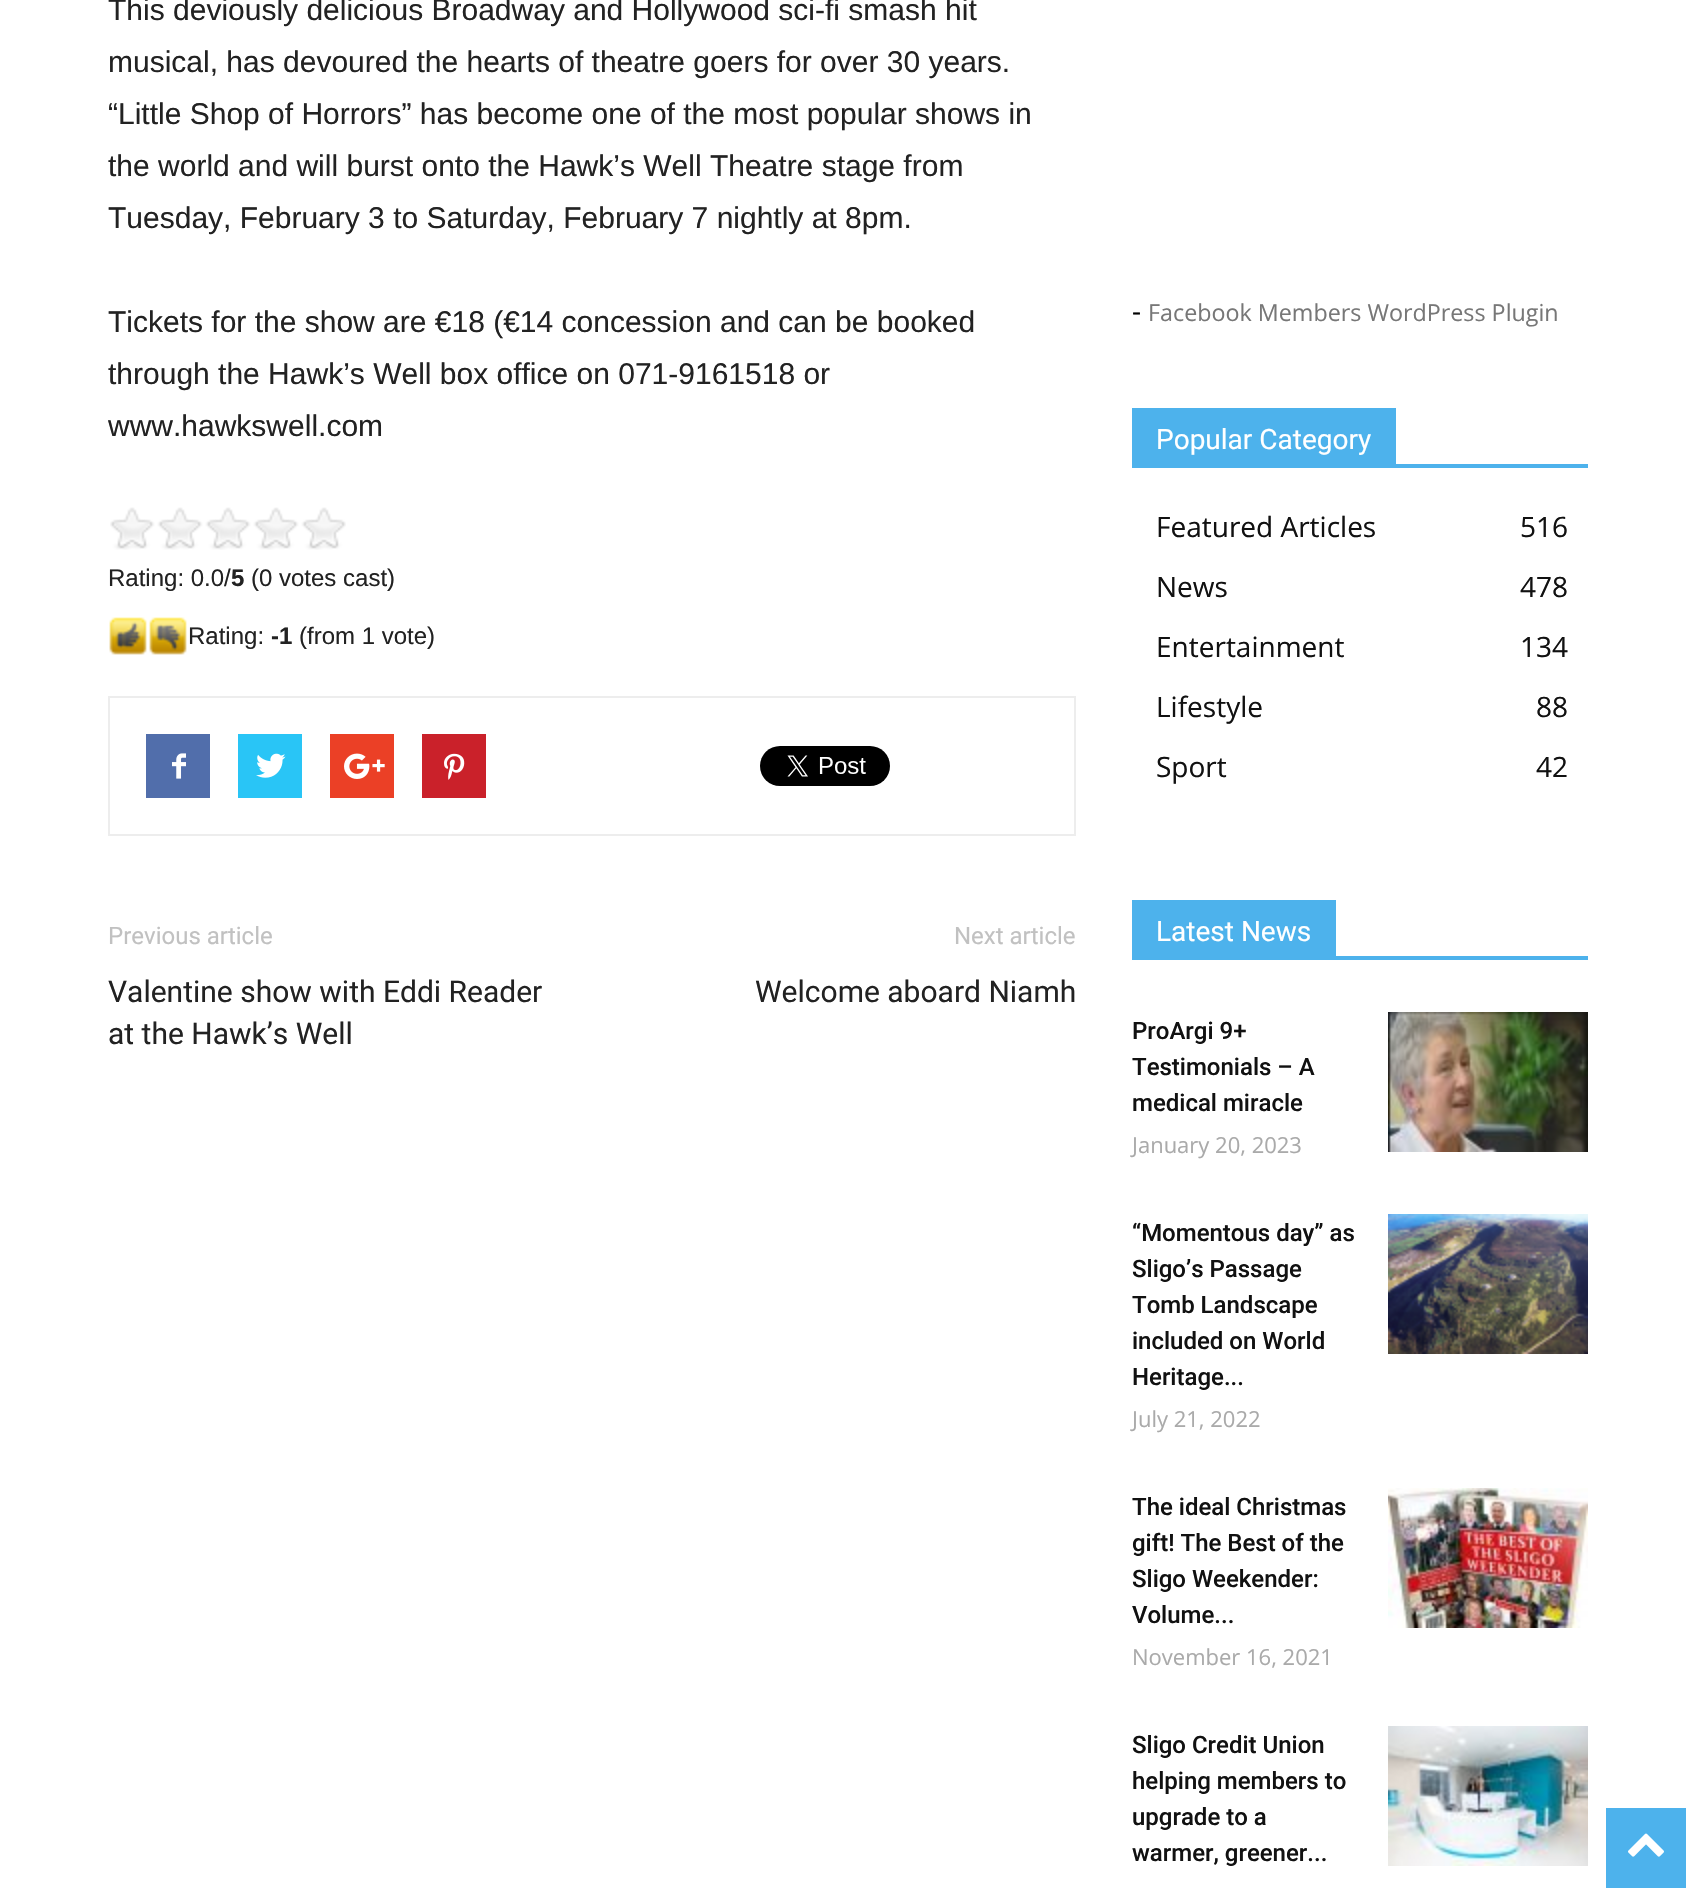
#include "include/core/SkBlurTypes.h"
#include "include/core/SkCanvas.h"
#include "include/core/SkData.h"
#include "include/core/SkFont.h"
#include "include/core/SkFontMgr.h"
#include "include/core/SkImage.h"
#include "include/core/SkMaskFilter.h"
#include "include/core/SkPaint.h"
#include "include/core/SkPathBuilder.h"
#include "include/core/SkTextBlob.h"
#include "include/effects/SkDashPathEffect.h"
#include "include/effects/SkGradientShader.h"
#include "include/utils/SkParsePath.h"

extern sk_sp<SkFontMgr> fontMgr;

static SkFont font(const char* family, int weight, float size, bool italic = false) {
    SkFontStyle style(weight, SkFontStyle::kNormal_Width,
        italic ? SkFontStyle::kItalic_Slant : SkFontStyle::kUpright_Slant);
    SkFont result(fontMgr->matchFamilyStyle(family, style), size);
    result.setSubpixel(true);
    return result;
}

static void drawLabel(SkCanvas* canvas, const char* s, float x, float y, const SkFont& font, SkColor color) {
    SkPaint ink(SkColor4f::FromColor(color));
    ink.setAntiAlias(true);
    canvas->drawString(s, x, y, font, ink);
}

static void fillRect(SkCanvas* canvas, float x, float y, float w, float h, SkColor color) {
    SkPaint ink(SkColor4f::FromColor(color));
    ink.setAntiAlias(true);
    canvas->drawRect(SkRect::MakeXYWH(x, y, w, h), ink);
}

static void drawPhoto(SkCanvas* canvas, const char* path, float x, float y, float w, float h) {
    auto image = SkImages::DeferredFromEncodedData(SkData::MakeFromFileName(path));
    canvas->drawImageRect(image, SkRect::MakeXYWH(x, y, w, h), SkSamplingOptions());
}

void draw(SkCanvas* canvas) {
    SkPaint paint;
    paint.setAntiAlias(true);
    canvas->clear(0xFFFFFFFF);
    SkFont font1 = font("Liberation Sans", 400, 30);
    drawLabel(canvas, "This deviously delicious Broadway and Hollywood sci-fi smash hit", 108, 20, font1, 0xFF222222);
    drawLabel(canvas, "musical, has devoured the hearts of theatre goers for over 30 years.", 108, 72, font1, 0xFF222222);
    drawLabel(canvas, "“Little Shop of Horrors” has become one of the most popular shows in", 108, 124, font1, 0xFF222222);
    drawLabel(canvas, "the world and will burst onto the Hawk’s Well Theatre stage from", 108, 176, font1, 0xFF222222);
    drawLabel(canvas, "Tuesday, February 3 to Saturday, February 7 nightly at 8pm.", 108, 228, font1, 0xFF222222);
    drawLabel(canvas, "Tickets for the show are €18 (€14 concession and can be booked", 108, 332, font1, 0xFF222222);
    drawLabel(canvas, "through the Hawk’s Well box office on 071-9161518 or", 108, 384, font1, 0xFF222222);
    drawLabel(canvas, "www.hawkswell.com", 108, 436, font1, 0xFF222222);
    drawPhoto(canvas, "assets/img1.png", 110, 507, 236, 43);
    SkFont font2 = font("Liberation Sans", 400, 24);
    drawLabel(canvas, "Rating: 0.0/", 108, 586, font2, 0xFF222222);
    SkFont font3 = font("Liberation Sans", 700, 24);
    drawLabel(canvas, "5", 231, 586, font3, 0xFF222222);
    drawLabel(canvas, "(0 votes cast)", 251, 586, font2, 0xFF222222);
    drawPhoto(canvas, "assets/img2.png", 109, 617, 38, 38);
    drawPhoto(canvas, "assets/img3.png", 149, 617, 38, 38);
    drawLabel(canvas, "Rating:", 188, 644, font2, 0xFF222222);
    drawLabel(canvas, "-1", 271, 644, font3, 0xFF222222);
    drawLabel(canvas, "(from 1 vote)", 299, 644, font2, 0xFF222222);
    paint.setStroke(true);
    paint.setStrokeWidth(2);
    paint.setColor(0xFFEDEDED);
    canvas->drawRect(SkRect::MakeXYWH(109, 697, 966, 138), paint);
    fillRect(canvas, 146, 734, 64, 64, 0xFF516EAB);
    drawPhoto(canvas, "assets/img4.png", 172, 753, 14, 26);
    fillRect(canvas, 238, 734, 64, 64, 0xFF29C5F6);
    drawPhoto(canvas, "assets/img5.png", 256, 753, 30, 25);
    fillRect(canvas, 330, 734, 64, 64, 0xFFEB4026);
    drawPhoto(canvas, "assets/img6.png", 344, 753, 41, 26);
    fillRect(canvas, 422, 734, 64, 64, 0xFFCA212A);
    drawPhoto(canvas, "assets/img7.png", 444, 753, 21, 27);
    drawPhoto(canvas, "assets/img8.png", 760, 746, 130, 40);
    SkFont font4 = font("Roboto", 400, 24);
    drawLabel(canvas, "Previous article", 108, 944, font4, 0xFFC1C1C1);
    SkFont font5 = font("Roboto", 400, 30);
    drawLabel(canvas, "Valentine show with Eddi Reader", 108, 1002, font5, 0xFF222222);
    drawLabel(canvas, "at the Hawk’s Well", 108, 1044, font5, 0xFF222222);
    drawLabel(canvas, "Next article", 954, 944, font4, 0xFFC1C1C1);
    drawLabel(canvas, "Welcome aboard Niamh", 755, 1002, font5, 0xFF222222);
    SkFont font6 = font("Open Sans", 400, 28);
    drawLabel(canvas, "-", 1132, 321, font6, 0xFF000000);
    SkFont font7 = font("Open Sans", 400, 23.3f);
    drawLabel(canvas, "Facebook Members WordPress Plugin", 1148, 321, font7, 0xFF777777);
    fillRect(canvas, 1132, 464, 456, 4, 0xFF4DB2EC);
    fillRect(canvas, 1132, 408, 264, 56, 0xFF4DB2EC);
    SkFont font8 = font("Roboto", 400, 28);
    drawLabel(canvas, "Popular Category", 1156, 449, font8, 0xFFFFFFFF);
    drawLabel(canvas, "Featured Articles", 1156, 537, font6, 0xFF111111);
    drawLabel(canvas, "516", 1520, 537, font6, 0xFF111111);
    drawLabel(canvas, "News", 1156, 597, font6, 0xFF111111);
    drawLabel(canvas, "478", 1520, 597, font6, 0xFF111111);
    drawLabel(canvas, "Entertainment", 1156, 657, font6, 0xFF111111);
    drawLabel(canvas, "134", 1520, 657, font6, 0xFF111111);
    drawLabel(canvas, "Lifestyle", 1156, 717, font6, 0xFF111111);
    drawLabel(canvas, "88", 1536, 717, font6, 0xFF111111);
    drawLabel(canvas, "Sport", 1156, 777, font6, 0xFF111111);
    drawLabel(canvas, "42", 1536, 777, font6, 0xFF111111);
    fillRect(canvas, 1132, 956, 456, 4, 0xFF4DB2EC);
    fillRect(canvas, 1132, 900, 204, 56, 0xFF4DB2EC);
    drawLabel(canvas, "Latest News", 1156, 941, font8, 0xFFFFFFFF);
    SkFont font9 = font("Roboto", 500, 24);
    drawLabel(canvas, "ProArgi 9+", 1132, 1039, font9, 0xFF111111);
    drawLabel(canvas, "Testimonials – A", 1132, 1075, font9, 0xFF111111);
    drawLabel(canvas, "medical miracle", 1132, 1111, font9, 0xFF111111);
    SkFont font10 = font("Open Sans", 400, 22);
    drawLabel(canvas, "January 20, 2023", 1132, 1153, font10, 0xFFAAAAAA);
    drawPhoto(canvas, "assets/img9.png", 1388, 1012, 200, 140);
    drawLabel(canvas, "“Momentous day” as", 1132, 1241, font9, 0xFF111111);
    drawLabel(canvas, "Sligo’s Passage", 1132, 1277, font9, 0xFF111111);
    drawLabel(canvas, "Tomb Landscape", 1132, 1313, font9, 0xFF111111);
    drawLabel(canvas, "included on World", 1132, 1349, font9, 0xFF111111);
    drawLabel(canvas, "Heritage...", 1132, 1385, font9, 0xFF111111);
    drawLabel(canvas, "July 21, 2022", 1132, 1427, font10, 0xFFAAAAAA);
    drawPhoto(canvas, "assets/img10.png", 1388, 1214, 200, 140);
    drawLabel(canvas, "The ideal Christmas", 1132, 1515, font9, 0xFF111111);
    drawLabel(canvas, "gift! The Best of the", 1132, 1551, font9, 0xFF111111);
    drawLabel(canvas, "Sligo Weekender:", 1132, 1587, font9, 0xFF111111);
    drawLabel(canvas, "Volume...", 1132, 1623, font9, 0xFF111111);
    drawLabel(canvas, "November 16, 2021", 1132, 1665, font10, 0xFFAAAAAA);
    drawPhoto(canvas, "assets/img11.png", 1388, 1488, 200, 140);
    drawLabel(canvas, "Sligo Credit Union", 1132, 1753, font9, 0xFF111111);
    drawLabel(canvas, "helping members to", 1132, 1789, font9, 0xFF111111);
    drawLabel(canvas, "upgrade to a", 1132, 1825, font9, 0xFF111111);
    drawLabel(canvas, "warmer, greener...", 1132, 1861, font9, 0xFF111111);
    drawPhoto(canvas, "assets/img12.png", 1388, 1726, 200, 140);
    fillRect(canvas, 1606, 1808, 80, 80, 0xFF4DB2EC);
    drawPhoto(canvas, "assets/img13.png", 1628, 1833, 36, 24);
}
